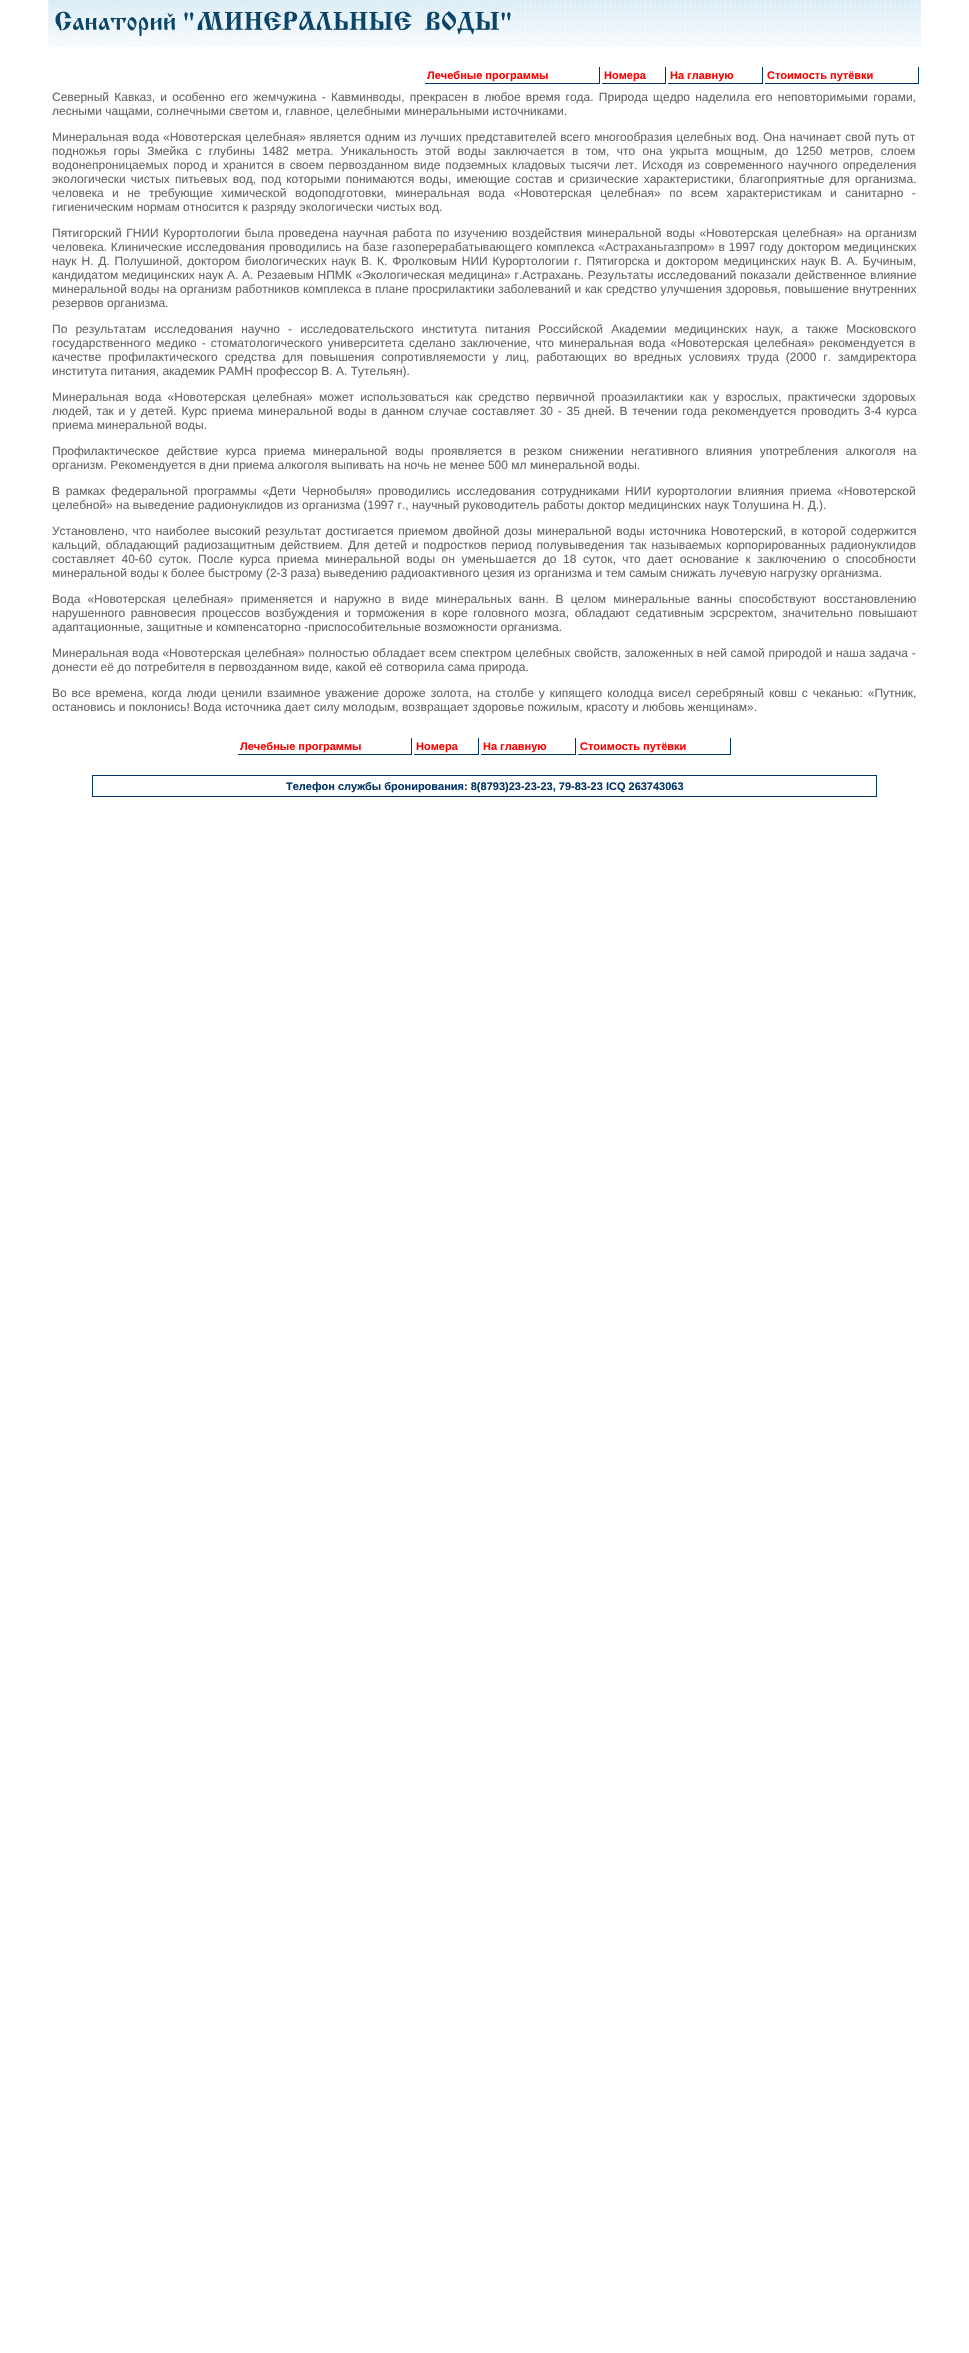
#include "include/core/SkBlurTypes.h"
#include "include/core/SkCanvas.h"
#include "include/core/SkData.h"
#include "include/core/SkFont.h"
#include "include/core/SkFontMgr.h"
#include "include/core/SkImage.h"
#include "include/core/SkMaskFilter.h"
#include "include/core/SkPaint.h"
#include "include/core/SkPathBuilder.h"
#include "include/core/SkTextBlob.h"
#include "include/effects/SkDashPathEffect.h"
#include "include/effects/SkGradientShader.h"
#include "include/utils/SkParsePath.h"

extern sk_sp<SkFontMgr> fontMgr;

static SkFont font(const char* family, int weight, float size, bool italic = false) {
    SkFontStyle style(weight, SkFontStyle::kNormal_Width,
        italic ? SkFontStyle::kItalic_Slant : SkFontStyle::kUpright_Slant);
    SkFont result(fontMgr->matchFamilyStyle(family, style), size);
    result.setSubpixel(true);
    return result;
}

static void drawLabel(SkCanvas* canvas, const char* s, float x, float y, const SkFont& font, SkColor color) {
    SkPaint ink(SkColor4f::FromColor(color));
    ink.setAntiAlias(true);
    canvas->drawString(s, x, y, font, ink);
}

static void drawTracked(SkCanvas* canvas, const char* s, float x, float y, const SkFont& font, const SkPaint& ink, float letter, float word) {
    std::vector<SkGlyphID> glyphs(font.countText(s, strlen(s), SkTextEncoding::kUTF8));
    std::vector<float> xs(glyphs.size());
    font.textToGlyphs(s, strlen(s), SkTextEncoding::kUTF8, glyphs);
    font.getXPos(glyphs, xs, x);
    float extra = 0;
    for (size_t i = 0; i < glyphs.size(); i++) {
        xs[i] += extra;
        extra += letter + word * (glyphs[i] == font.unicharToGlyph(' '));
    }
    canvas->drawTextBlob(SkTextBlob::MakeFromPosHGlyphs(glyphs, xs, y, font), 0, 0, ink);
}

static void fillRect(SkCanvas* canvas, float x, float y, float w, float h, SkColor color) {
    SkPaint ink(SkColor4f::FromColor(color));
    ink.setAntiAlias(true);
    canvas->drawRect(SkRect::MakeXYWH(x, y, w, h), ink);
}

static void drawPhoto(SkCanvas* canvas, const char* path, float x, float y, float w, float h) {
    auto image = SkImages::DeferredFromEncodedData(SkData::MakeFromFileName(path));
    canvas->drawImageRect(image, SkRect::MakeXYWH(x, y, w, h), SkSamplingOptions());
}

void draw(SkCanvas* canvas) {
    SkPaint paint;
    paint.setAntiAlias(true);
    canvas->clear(0xFFFFFFFF);
    drawPhoto(canvas, "assets/img1.png", 48, 0, 467, 47);
    drawPhoto(canvas, "assets/img2.png", 515, 0, 406, 47);
    fillRect(canvas, 599, 67, 1, 17, 0xFF003366);
    fillRect(canvas, 425, 83, 175, 1, 0xFF003366);
    SkFont font1 = font("Liberation Sans", 700, 11);
    drawLabel(canvas, "Лечебные программы", 427, 79, font1, 0xFFFF0000);
    fillRect(canvas, 665, 67, 1, 17, 0xFF003366);
    fillRect(canvas, 602, 83, 64, 1, 0xFF003366);
    drawLabel(canvas, "Номера", 604, 79, font1, 0xFFFF0000);
    fillRect(canvas, 762, 67, 1, 17, 0xFF003366);
    fillRect(canvas, 668, 83, 95, 1, 0xFF003366);
    drawLabel(canvas, "На главную", 670, 79, font1, 0xFFFF0000);
    fillRect(canvas, 918, 67, 1, 17, 0xFF003366);
    fillRect(canvas, 765, 83, 154, 1, 0xFF003366);
    drawLabel(canvas, "Стоимость путёвки", 767, 79, font1, 0xFFFF0000);
    SkFont font2 = font("Liberation Sans", 400, 12);
    paint.setColor(0xFF666666);
    drawTracked(canvas, "Северный Кавказ, и особенно его жемчужина - Кавминводы, прекрасен в любое время года. Природа щедро наделила его неповторимыми горами,", 52, 101, font2, paint, 0, 1.9f);
    drawLabel(canvas, "лесными чащами, солнечными светом и, главное, целебными минеральными источниками.", 52, 115, font2, 0xFF666666);
    drawTracked(canvas, "Минеральная вода «Новотерская целебная» является одним из лучших представителей всего многообразия целебных вод. Она начинает свой путь от", 52, 141, font2, paint, 0, 0.6f);
    drawTracked(canvas, "подножья горы Змейка с глубины 1482 метра. Уникальность этой воды заключается в том, что она укрыта мощным, до 1250 метров, слоем", 52, 155, font2, paint, 0, 4);
    drawTracked(canvas, "водонепроницаемых пород и хранится в своем первозданном виде подземных кладовых тысячи лет. Исходя из современного научного определения", 52, 169, font2, paint, 0, 1.5f);
    drawTracked(canvas, "экологически чистых питьевых вод, под которыми понимаются воды, имеющие состав и сризические характеристики, благоприятные для организма.", 52, 183, font2, paint, 0, 1.75f);
    drawTracked(canvas, "человека и не требующие химической водоподготовки, минеральная вода «Новотерская целебная» по всем характеристикам и санитарно -", 52, 197, font2, paint, 0, 5.1f);
    drawLabel(canvas, "гигиеническим нормам относится к разряду экологически чистых вод.", 52, 211, font2, 0xFF666666);
    drawTracked(canvas, "Пятигорский ГНИИ Курортологии была проведена научная работа по изучению воздействия минеральной воды «Новотерская целебная» на организм", 52, 237, font2, paint, 0, 1.25f);
    drawTracked(canvas, "человека. Клинические исследования проводились на базе газоперерабатывающего комплекса «Астраханьгазпром» в 1997 году доктором медицинских", 52, 251, font2, paint, 0, 0.5f);
    drawTracked(canvas, "наук Н. Д. Полушиной, доктором биологических наук В. К. Фролковым НИИ Курортологии г. Пятигорска и доктором медицинских наук В. А. Бучиным,", 52, 265, font2, paint, 0, 1.5f);
    drawTracked(canvas, "кандидатом медицинских наук А. А. Резаевым НПМК «Экологическая медицина» г.Астрахань. Результаты исследований показали действенное влияние", 52, 279, font2, paint, 0, 0.4f);
    drawTracked(canvas, "минеральной воды на организм работников комплекса в плане просрилактики заболеваний и как средство улучшения здоровья, повышение внутренних", 52, 293, font2, paint, 0, 0.4f);
    drawLabel(canvas, "резервов организма.", 52, 307, font2, 0xFF666666);
    drawTracked(canvas, "По результатам исследования научно - исследовательского института питания Российской Академии медицинских наук, а также Московского", 52, 333, font2, paint, 0, 4.75f);
    drawTracked(canvas, "государственного медико - стоматологического университета сделано заключение, что минеральная вода «Новотерская целебная» рекомендуется в", 52, 347, font2, paint, 0, 1.75f);
    drawTracked(canvas, "качестве профилактического средства для повышения сопротивляемости у лиц, работающих во вредных условиях труда (2000 г. замдиректора", 52, 361, font2, paint, 0, 3.6f);
    drawLabel(canvas, "института питания, академик РАМН профессор В. А. Тутельян).", 52, 375, font2, 0xFF666666);
    drawTracked(canvas, "Минеральная вода «Новотерская целебная» может использоваться как средство первичной проаэилактики как у взрослых, практически здоровых", 52, 401, font2, paint, 0, 2.9f);
    drawTracked(canvas, "людей, так и у детей. Курс приема минеральной воды в данном случае составляет 30 - 35 дней. В течении года рекомендуется проводить 3-4 курса", 52, 415, font2, paint, 0, 1.4f);
    drawLabel(canvas, "приема минеральной воды.", 52, 429, font2, 0xFF666666);
    drawTracked(canvas, "Профилактическое действие курса приема минеральной воды проявляется в резком снижении негативного влияния употребления алкоголя на", 52, 455, font2, paint, 0, 4.1f);
    drawLabel(canvas, "организм. Рекомендуется в дни приема алкоголя выпивать на ночь не менее 500 мл минеральной воды.", 52, 469, font2, 0xFF666666);
    drawTracked(canvas, "В рамках федеральной программы «Дети Чернобыля» проводились исследования сотрудниками НИИ курортологии влияния приема «Новотерской", 52, 495, font2, paint, 0, 2.5f);
    drawLabel(canvas, "целебной» на выведение радионуклидов из организма (1997 г., научный руководитель работы доктор медицинских наук Толушина Н. Д.).", 52, 509, font2, 0xFF666666);
    drawTracked(canvas, "Установлено, что наиболее высокий результат достигается приемом двойной дозы минеральной воды источника Новотерский, в которой содержится", 52, 535, font2, paint, 0, 1.4f);
    drawTracked(canvas, "кальций, обладающий радиозащитным действием. Для детей и подростков период полувыведения так называемых корпорированных радионуклидов", 52, 549, font2, paint, 0, 1.5f);
    drawTracked(canvas, "составляет 40-60 суток. После курса приема минеральной воды он уменьшается до 18 суток, что дает основание к заключению о способности", 52, 563, font2, paint, 0, 3.25f);
    drawLabel(canvas, "минеральной воды к более быстрому (2-3 раза) выведению радиоактивного цезия из организма и тем самым снижать лучевую нагрузку организма.", 52, 577, font2, 0xFF666666);
    drawTracked(canvas, "Вода «Новотерская целебная» применяется и наружно в виде минеральных ванн. В целом минеральные ванны способствуют восстановлению", 52, 603, font2, paint, 0, 3.75f);
    drawTracked(canvas, "нарушенного равновесия процессов возбуждения и торможения в коре головного мозга, обладают седативным эсрсректом, значительно повышают", 52, 617, font2, paint, 0, 2.25f);
    drawLabel(canvas, "адаптационные, защитные и компенсаторно -приспособительные возможности организма.", 52, 631, font2, 0xFF666666);
    drawTracked(canvas, "Минеральная вода «Новотерская целебная» полностью обладает всем спектром целебных свойств, заложенных в ней самой природой и наша задача -", 52, 657, font2, paint, 0, 0.3f);
    drawLabel(canvas, "донести её до потребителя в первозданном виде, какой её сотворила сама природа.", 52, 671, font2, 0xFF666666);
    drawTracked(canvas, "Во все времена, когда люди ценили взаимное уважение дороже золота, на столбе у кипящего колодца висел серебряный ковш с чеканью: «Путник,", 52, 697, font2, paint, 0, 1.6f);
    drawLabel(canvas, "остановись и поклонись! Вода источника дает силу молодым, возвращает здоровье пожилым, красоту и любовь женщинам».", 52, 711, font2, 0xFF666666);
    fillRect(canvas, 411, 738, 1, 17, 0xFF003366);
    fillRect(canvas, 238, 754, 174, 1, 0xFF003366);
    drawLabel(canvas, "Лечебные программы", 240, 750, font1, 0xFFFF0000);
    fillRect(canvas, 478, 738, 1, 17, 0xFF003366);
    fillRect(canvas, 414, 754, 65, 1, 0xFF003366);
    drawLabel(canvas, "Номера", 416, 750, font1, 0xFFFF0000);
    fillRect(canvas, 575, 738, 1, 17, 0xFF003366);
    fillRect(canvas, 481, 754, 95, 1, 0xFF003366);
    drawLabel(canvas, "На главную", 483, 750, font1, 0xFFFF0000);
    fillRect(canvas, 730, 738, 1, 17, 0xFF003366);
    fillRect(canvas, 578, 754, 153, 1, 0xFF003366);
    drawLabel(canvas, "Стоимость путёвки", 580, 750, font1, 0xFFFF0000);
    paint.setStroke(true);
    paint.setStrokeWidth(1);
    paint.setColor(0xFF003366);
    canvas->drawRect(SkRect::MakeXYWH(92.5f, 775.5f, 784, 21), paint);
    drawLabel(canvas, "Телефон службы бронирования: 8(8793)23-23-23, 79-83-23 ICQ 263743063", 286, 790, font1, 0xFF003366);
}
